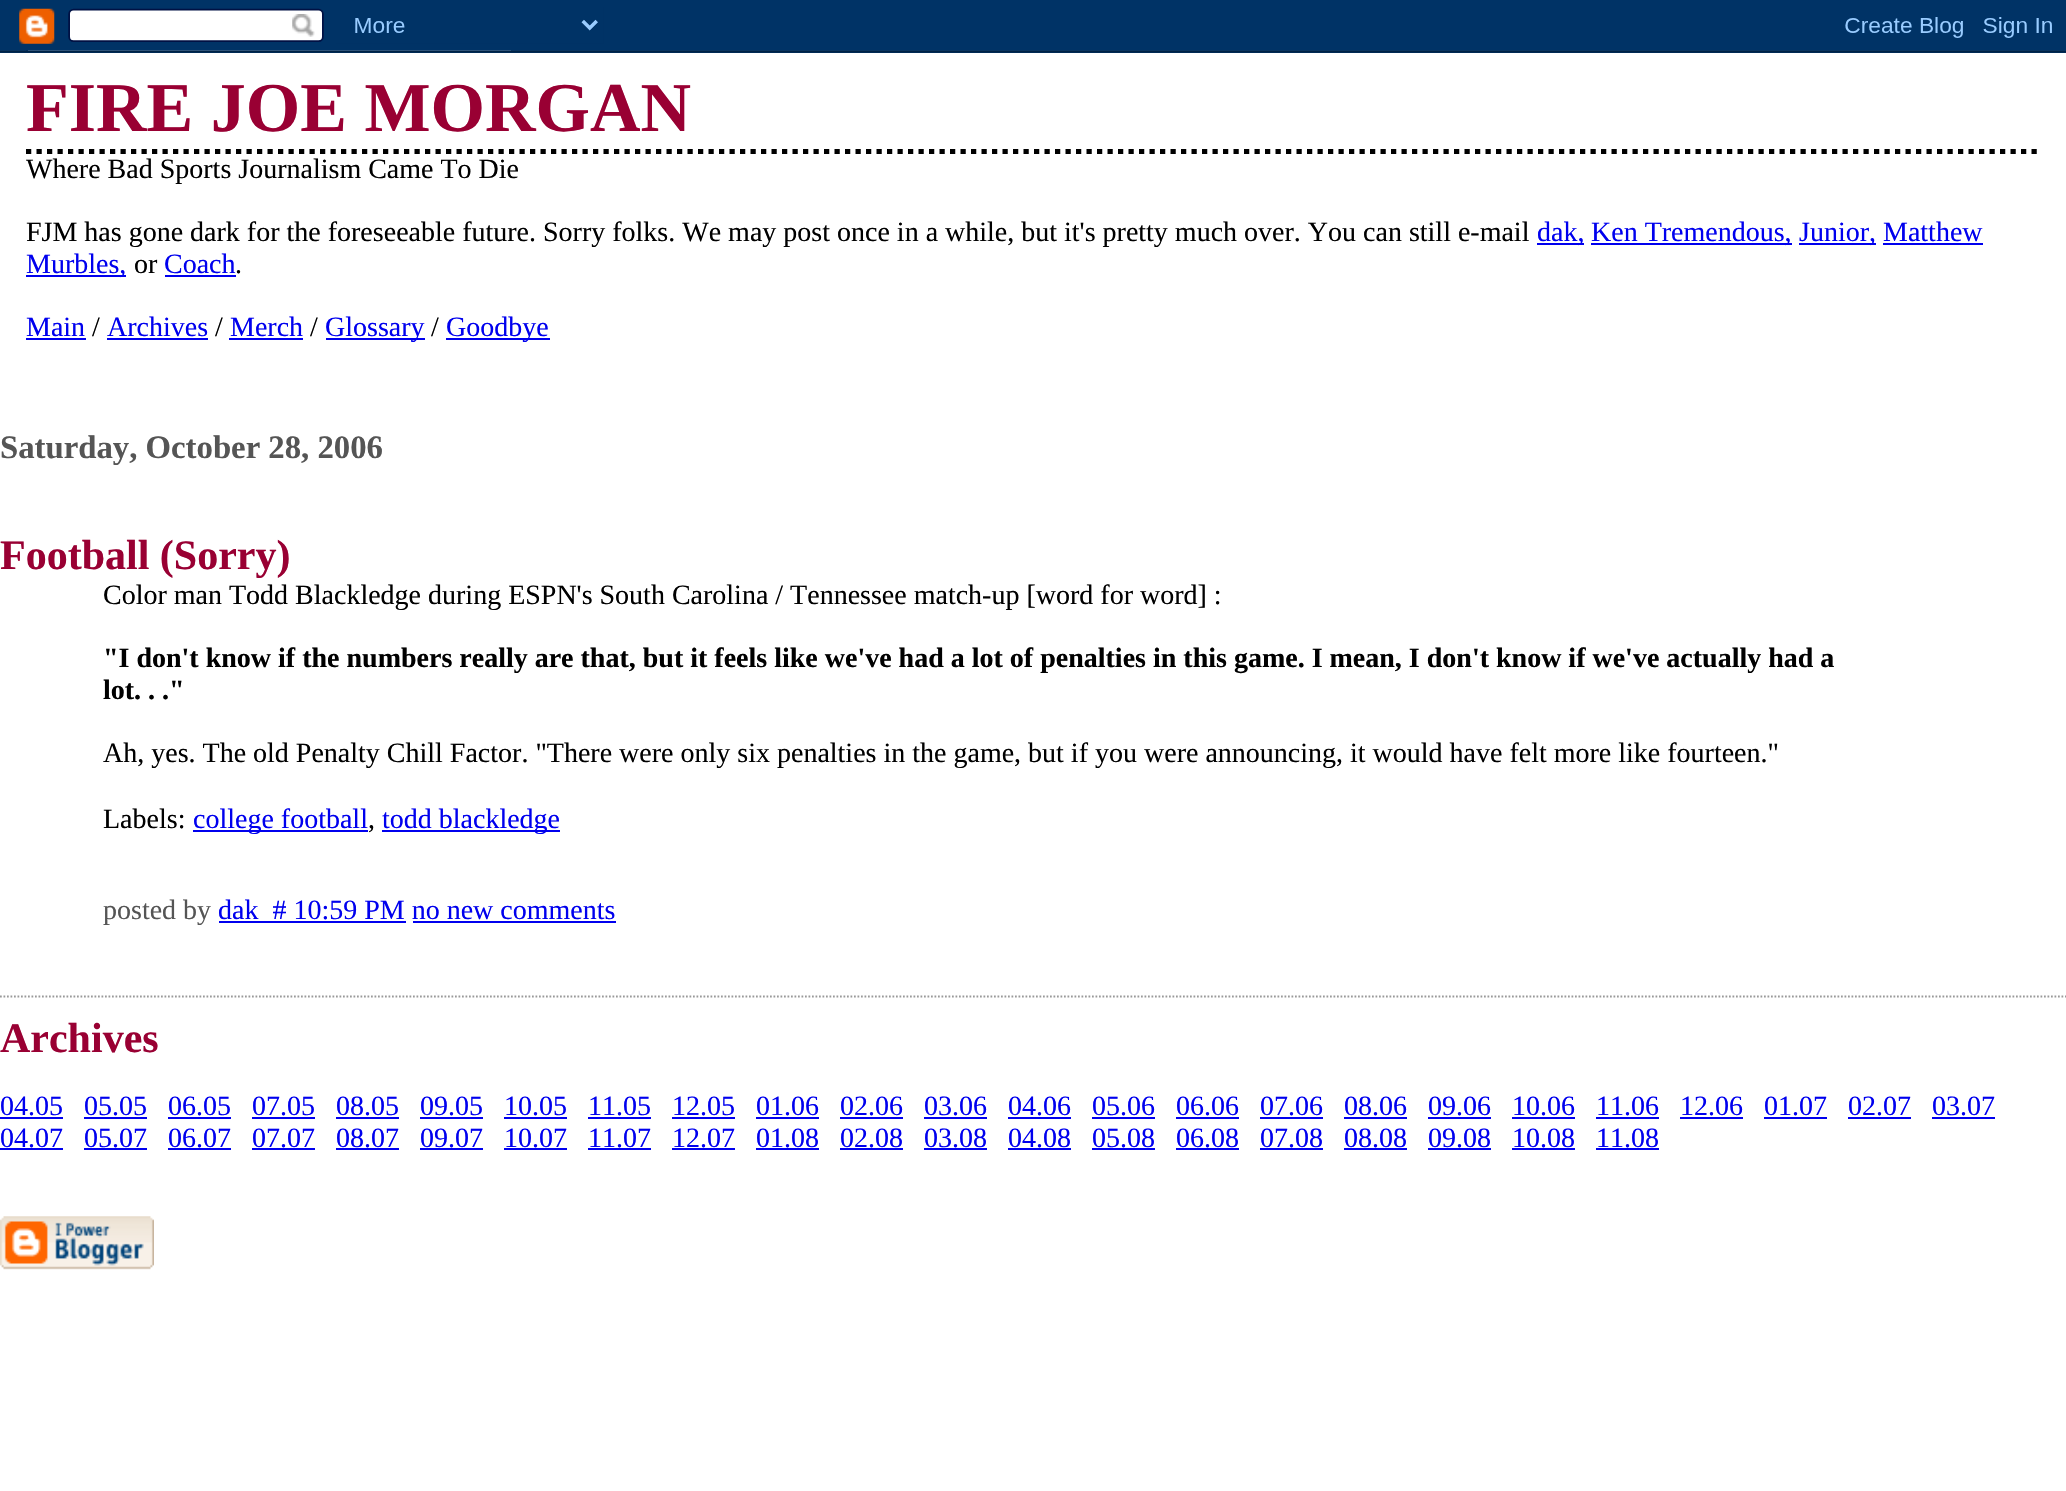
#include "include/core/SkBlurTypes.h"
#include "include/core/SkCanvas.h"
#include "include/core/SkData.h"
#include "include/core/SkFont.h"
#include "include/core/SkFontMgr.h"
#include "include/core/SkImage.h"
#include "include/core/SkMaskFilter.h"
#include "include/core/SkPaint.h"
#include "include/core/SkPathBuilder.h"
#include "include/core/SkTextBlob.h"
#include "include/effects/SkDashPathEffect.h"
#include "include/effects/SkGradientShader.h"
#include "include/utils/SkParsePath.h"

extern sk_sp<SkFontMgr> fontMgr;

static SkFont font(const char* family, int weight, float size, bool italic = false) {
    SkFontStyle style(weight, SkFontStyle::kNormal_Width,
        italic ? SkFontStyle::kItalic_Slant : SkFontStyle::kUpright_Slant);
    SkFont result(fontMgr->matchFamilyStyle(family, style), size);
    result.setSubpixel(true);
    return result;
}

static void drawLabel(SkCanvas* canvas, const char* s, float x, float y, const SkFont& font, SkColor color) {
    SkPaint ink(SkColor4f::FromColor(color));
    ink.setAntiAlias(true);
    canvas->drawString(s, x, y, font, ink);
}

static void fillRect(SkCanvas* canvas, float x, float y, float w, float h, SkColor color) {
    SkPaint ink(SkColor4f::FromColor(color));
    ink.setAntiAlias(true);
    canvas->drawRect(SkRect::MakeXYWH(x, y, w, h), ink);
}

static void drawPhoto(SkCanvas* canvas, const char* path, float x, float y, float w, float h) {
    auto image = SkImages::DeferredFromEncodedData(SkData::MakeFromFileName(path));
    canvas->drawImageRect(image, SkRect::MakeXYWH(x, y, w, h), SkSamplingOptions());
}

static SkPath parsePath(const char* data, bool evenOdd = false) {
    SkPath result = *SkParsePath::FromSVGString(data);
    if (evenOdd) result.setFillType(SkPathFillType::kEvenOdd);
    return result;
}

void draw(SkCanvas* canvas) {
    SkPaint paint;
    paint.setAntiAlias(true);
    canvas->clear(0xFFFFFFFF);
    drawPhoto(canvas, "assets/img1.png", 0, 0, 2066, 53);
    paint.setStroke(true);
    paint.setStrokeWidth(5.2f);
    paint.setColor(0xFF000000);
    paint.setPathEffect(SkDashPathEffect::Make({{5.25f, 5.25f}}, 0));
    canvas->drawPath(parsePath("M26 151.5H2040.5"), paint);
    paint.setPathEffect(nullptr);
    SkFont font1 = font("Liberation Serif", 700, 70);
    drawLabel(canvas, "FIRE JOE MORGAN", 26, 131, font1, 0xFF990033);
    SkFont font2 = font("Liberation Serif", 400, 28);
    drawLabel(canvas, "Where Bad Sports Journalism Came To Die", 26, 178, font2, 0xFF000000);
    drawLabel(canvas, "FJM has gone dark for the foreseeable future. Sorry folks. We may post once in a while, but it's pretty much over. You can still e-mail", 26, 241, font2, 0xFF000000);
    fillRect(canvas, 1537, 243, 47, 2, 0xFF0000EE);
    drawLabel(canvas, "dak,", 1537, 241, font2, 0xFF0000EE);
    fillRect(canvas, 1591, 243, 201, 2, 0xFF0000EE);
    drawLabel(canvas, "Ken Tremendous,", 1591, 241, font2, 0xFF0000EE);
    fillRect(canvas, 1799, 243, 77, 2, 0xFF0000EE);
    drawLabel(canvas, "Junior, Matthew", 1799, 241, font2, 0xFF0000EE);
    fillRect(canvas, 1883, 243, 100, 2, 0xFF0000EE);
    fillRect(canvas, 26, 275, 100, 2, 0xFF0000EE);
    drawLabel(canvas, "Murbles,", 26, 273, font2, 0xFF0000EE);
    drawLabel(canvas, "or", 134, 273, font2, 0xFF000000);
    drawLabel(canvas, "Coach", 164, 273, font2, 0xFF0000EE);
    drawLabel(canvas, ".", 235, 273, font2, 0xFF000000);
    fillRect(canvas, 165, 275, 71, 2, 0xFF0000EE);
    drawLabel(canvas, "Main", 26, 336, font2, 0xFF0000EE);
    fillRect(canvas, 26, 338, 60, 2, 0xFF0000EE);
    drawLabel(canvas, "/", 92, 336, font2, 0xFF000000);
    drawLabel(canvas, "Archives", 107, 336, font2, 0xFF0000EE);
    fillRect(canvas, 107, 338, 101, 2, 0xFF0000EE);
    drawLabel(canvas, "/", 215, 336, font2, 0xFF000000);
    drawLabel(canvas, "Merch", 230, 336, font2, 0xFF0000EE);
    fillRect(canvas, 229, 338, 74, 2, 0xFF0000EE);
    drawLabel(canvas, "/", 310, 336, font2, 0xFF000000);
    fillRect(canvas, 326, 338, 99, 2, 0xFF0000EE);
    drawLabel(canvas, "Glossary", 325, 336, font2, 0xFF0000EE);
    drawLabel(canvas, "/", 431, 336, font2, 0xFF000000);
    fillRect(canvas, 446, 338, 104, 2, 0xFF0000EE);
    drawLabel(canvas, "Goodbye", 446, 336, font2, 0xFF0000EE);
    SkFont font3 = font("Liberation Serif", 700, 32.75f);
    drawLabel(canvas, "Saturday, October 28, 2006", 0, 458, font3, 0xFF555555);
    SkFont font4 = font("Liberation Serif", 700, 42);
    drawLabel(canvas, "Football (Sorry)", 0, 569, font4, 0xFF990033);
    drawLabel(canvas, "Color man Todd Blackledge during ESPN's South Carolina / Tennessee match-up [word for word] :", 103, 604, font2, 0xFF000000);
    SkFont font5 = font("Liberation Serif", 700, 28);
    drawLabel(canvas, "\"I don't know if the numbers really are that, but it feels like we've had a lot of penalties in this game. I mean, I don't know if we've actually had a", 103, 667, font5, 0xFF000000);
    drawLabel(canvas, "lot. . .\"", 103, 699, font5, 0xFF000000);
    drawLabel(canvas, "Ah, yes. The old Penalty Chill Factor. \"There were only six penalties in the game, but if you were announcing, it would have felt more like fourteen.\"", 103, 762, font2, 0xFF000000);
    drawLabel(canvas, "Labels:", 103, 828, font2, 0xFF000000);
    fillRect(canvas, 193, 830, 175, 2, 0xFF0000EE);
    drawLabel(canvas, "college football", 193, 828, font2, 0xFF0000EE);
    drawLabel(canvas, ",", 368, 828, font2, 0xFF000000);
    fillRect(canvas, 382, 830, 178, 2, 0xFF0000EE);
    drawLabel(canvas, "todd blackledge", 382, 828, font2, 0xFF0000EE);
    drawLabel(canvas, "posted by", 103, 919, font2, 0xFF555555);
    drawLabel(canvas, "dak  # 10:59 PM no new comments", 218, 919, font2, 0xFF0000EE);
    fillRect(canvas, 219, 921, 187, 2, 0xFF0000EE);
    fillRect(canvas, 413, 921, 203, 2, 0xFF0000EE);
    paint.setStrokeWidth(1.8f);
    paint.setColor(0xFF999999);
    paint.setPathEffect(SkDashPathEffect::Make({{1.75f, 1.75f}}, 0));
    canvas->drawPath(parsePath("M0 996.5H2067"), paint);
    paint.setPathEffect(nullptr);
    drawLabel(canvas, "Archives", 0, 1052, font4, 0xFF990033);
    drawLabel(canvas, "04.05", 0, 1115, font2, 0xFF0000EE);
    fillRect(canvas, 0, 1117, 63, 2, 0xFF0000EE);
    drawLabel(canvas, "05.05", 84, 1115, font2, 0xFF0000EE);
    fillRect(canvas, 84, 1117, 63, 2, 0xFF0000EE);
    drawLabel(canvas, "06.05", 168, 1115, font2, 0xFF0000EE);
    fillRect(canvas, 168, 1117, 63, 2, 0xFF0000EE);
    drawLabel(canvas, "07.05", 252, 1115, font2, 0xFF0000EE);
    fillRect(canvas, 252, 1117, 63, 2, 0xFF0000EE);
    drawLabel(canvas, "08.05", 336, 1115, font2, 0xFF0000EE);
    fillRect(canvas, 336, 1117, 63, 2, 0xFF0000EE);
    drawLabel(canvas, "09.05", 420, 1115, font2, 0xFF0000EE);
    fillRect(canvas, 420, 1117, 63, 2, 0xFF0000EE);
    drawLabel(canvas, "10.05", 504, 1115, font2, 0xFF0000EE);
    fillRect(canvas, 504, 1117, 63, 2, 0xFF0000EE);
    drawLabel(canvas, "11.05", 588, 1115, font2, 0xFF0000EE);
    fillRect(canvas, 588, 1117, 63, 2, 0xFF0000EE);
    drawLabel(canvas, "12.05", 672, 1115, font2, 0xFF0000EE);
    fillRect(canvas, 672, 1117, 63, 2, 0xFF0000EE);
    drawLabel(canvas, "01.06", 756, 1115, font2, 0xFF0000EE);
    fillRect(canvas, 756, 1117, 63, 2, 0xFF0000EE);
    drawLabel(canvas, "02.06", 840, 1115, font2, 0xFF0000EE);
    fillRect(canvas, 840, 1117, 63, 2, 0xFF0000EE);
    drawLabel(canvas, "03.06", 924, 1115, font2, 0xFF0000EE);
    fillRect(canvas, 924, 1117, 63, 2, 0xFF0000EE);
    drawLabel(canvas, "04.06", 1008, 1115, font2, 0xFF0000EE);
    fillRect(canvas, 1008, 1117, 63, 2, 0xFF0000EE);
    drawLabel(canvas, "05.06", 1092, 1115, font2, 0xFF0000EE);
    fillRect(canvas, 1092, 1117, 63, 2, 0xFF0000EE);
    drawLabel(canvas, "06.06", 1176, 1115, font2, 0xFF0000EE);
    fillRect(canvas, 1176, 1117, 63, 2, 0xFF0000EE);
    drawLabel(canvas, "07.06", 1260, 1115, font2, 0xFF0000EE);
    fillRect(canvas, 1260, 1117, 63, 2, 0xFF0000EE);
    drawLabel(canvas, "08.06", 1344, 1115, font2, 0xFF0000EE);
    fillRect(canvas, 1344, 1117, 63, 2, 0xFF0000EE);
    drawLabel(canvas, "09.06", 1428, 1115, font2, 0xFF0000EE);
    fillRect(canvas, 1428, 1117, 63, 2, 0xFF0000EE);
    drawLabel(canvas, "10.06", 1512, 1115, font2, 0xFF0000EE);
    fillRect(canvas, 1512, 1117, 63, 2, 0xFF0000EE);
    drawLabel(canvas, "11.06", 1596, 1115, font2, 0xFF0000EE);
    fillRect(canvas, 1596, 1117, 63, 2, 0xFF0000EE);
    drawLabel(canvas, "12.06", 1680, 1115, font2, 0xFF0000EE);
    fillRect(canvas, 1680, 1117, 63, 2, 0xFF0000EE);
    drawLabel(canvas, "01.07", 1764, 1115, font2, 0xFF0000EE);
    fillRect(canvas, 1764, 1117, 63, 2, 0xFF0000EE);
    drawLabel(canvas, "02.07", 1848, 1115, font2, 0xFF0000EE);
    fillRect(canvas, 1848, 1117, 63, 2, 0xFF0000EE);
    drawLabel(canvas, "03.07", 1932, 1115, font2, 0xFF0000EE);
    fillRect(canvas, 1932, 1117, 63, 2, 0xFF0000EE);
    drawLabel(canvas, "04.07", 0, 1147, font2, 0xFF0000EE);
    fillRect(canvas, 0, 1148, 63, 2, 0xFF0000EE);
    drawLabel(canvas, "05.07", 84, 1147, font2, 0xFF0000EE);
    fillRect(canvas, 84, 1148, 63, 2, 0xFF0000EE);
    drawLabel(canvas, "06.07", 168, 1147, font2, 0xFF0000EE);
    fillRect(canvas, 168, 1148, 63, 2, 0xFF0000EE);
    drawLabel(canvas, "07.07", 252, 1147, font2, 0xFF0000EE);
    fillRect(canvas, 252, 1148, 63, 2, 0xFF0000EE);
    drawLabel(canvas, "08.07", 336, 1147, font2, 0xFF0000EE);
    fillRect(canvas, 336, 1148, 63, 2, 0xFF0000EE);
    drawLabel(canvas, "09.07", 420, 1147, font2, 0xFF0000EE);
    fillRect(canvas, 420, 1148, 63, 2, 0xFF0000EE);
    drawLabel(canvas, "10.07", 504, 1147, font2, 0xFF0000EE);
    fillRect(canvas, 504, 1148, 63, 2, 0xFF0000EE);
    drawLabel(canvas, "11.07", 588, 1147, font2, 0xFF0000EE);
    fillRect(canvas, 588, 1148, 63, 2, 0xFF0000EE);
    drawLabel(canvas, "12.07", 672, 1147, font2, 0xFF0000EE);
    fillRect(canvas, 672, 1148, 63, 2, 0xFF0000EE);
    drawLabel(canvas, "01.08", 756, 1147, font2, 0xFF0000EE);
    fillRect(canvas, 756, 1148, 63, 2, 0xFF0000EE);
    drawLabel(canvas, "02.08", 840, 1147, font2, 0xFF0000EE);
    fillRect(canvas, 840, 1148, 63, 2, 0xFF0000EE);
    drawLabel(canvas, "03.08", 924, 1147, font2, 0xFF0000EE);
    fillRect(canvas, 924, 1148, 63, 2, 0xFF0000EE);
    drawLabel(canvas, "04.08", 1008, 1147, font2, 0xFF0000EE);
    fillRect(canvas, 1008, 1148, 63, 2, 0xFF0000EE);
    drawLabel(canvas, "05.08", 1092, 1147, font2, 0xFF0000EE);
    fillRect(canvas, 1092, 1148, 63, 2, 0xFF0000EE);
    drawLabel(canvas, "06.08", 1176, 1147, font2, 0xFF0000EE);
    fillRect(canvas, 1176, 1148, 63, 2, 0xFF0000EE);
    drawLabel(canvas, "07.08", 1260, 1147, font2, 0xFF0000EE);
    fillRect(canvas, 1260, 1148, 63, 2, 0xFF0000EE);
    drawLabel(canvas, "08.08", 1344, 1147, font2, 0xFF0000EE);
    fillRect(canvas, 1344, 1148, 63, 2, 0xFF0000EE);
    drawLabel(canvas, "09.08", 1428, 1147, font2, 0xFF0000EE);
    fillRect(canvas, 1428, 1148, 63, 2, 0xFF0000EE);
    drawLabel(canvas, "10.08", 1512, 1147, font2, 0xFF0000EE);
    fillRect(canvas, 1512, 1148, 63, 2, 0xFF0000EE);
    drawLabel(canvas, "11.08", 1596, 1147, font2, 0xFF0000EE);
    fillRect(canvas, 1596, 1148, 63, 2, 0xFF0000EE);
    drawPhoto(canvas, "assets/img2.png", 0, 1216, 154, 54);
}
